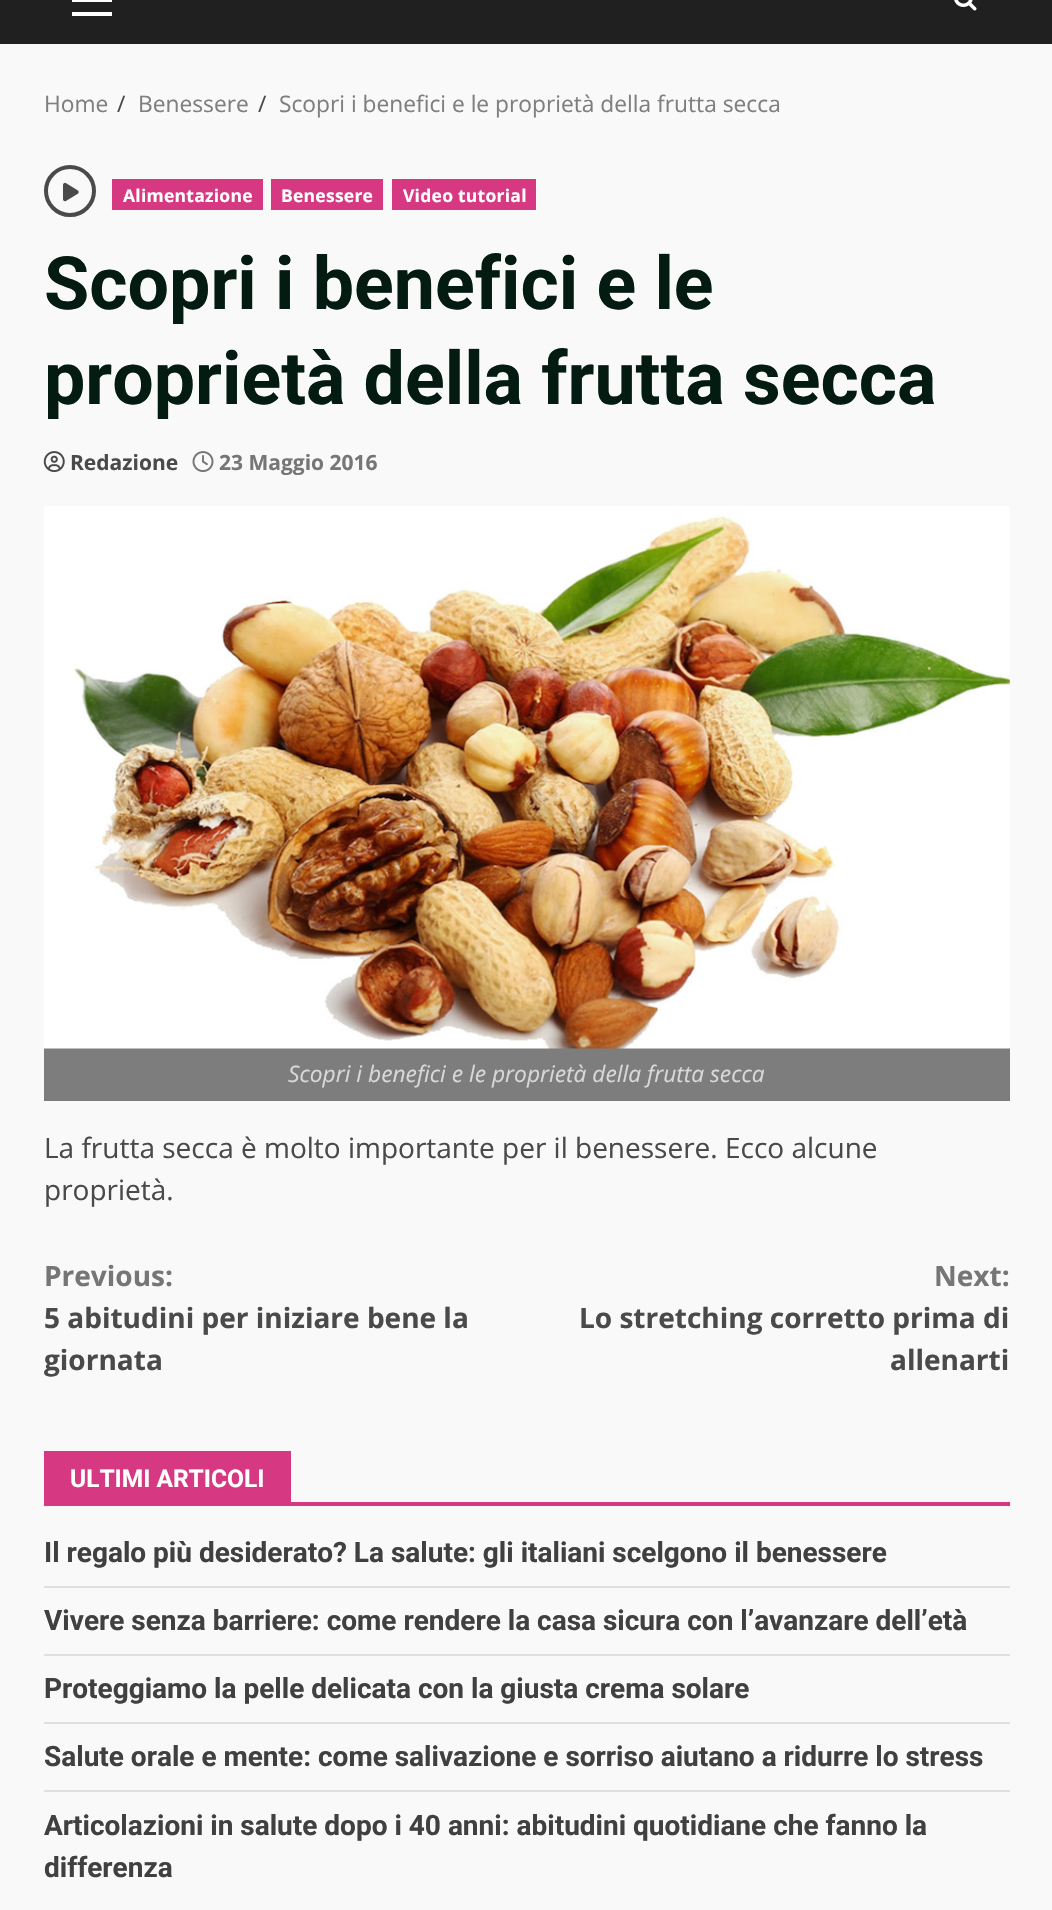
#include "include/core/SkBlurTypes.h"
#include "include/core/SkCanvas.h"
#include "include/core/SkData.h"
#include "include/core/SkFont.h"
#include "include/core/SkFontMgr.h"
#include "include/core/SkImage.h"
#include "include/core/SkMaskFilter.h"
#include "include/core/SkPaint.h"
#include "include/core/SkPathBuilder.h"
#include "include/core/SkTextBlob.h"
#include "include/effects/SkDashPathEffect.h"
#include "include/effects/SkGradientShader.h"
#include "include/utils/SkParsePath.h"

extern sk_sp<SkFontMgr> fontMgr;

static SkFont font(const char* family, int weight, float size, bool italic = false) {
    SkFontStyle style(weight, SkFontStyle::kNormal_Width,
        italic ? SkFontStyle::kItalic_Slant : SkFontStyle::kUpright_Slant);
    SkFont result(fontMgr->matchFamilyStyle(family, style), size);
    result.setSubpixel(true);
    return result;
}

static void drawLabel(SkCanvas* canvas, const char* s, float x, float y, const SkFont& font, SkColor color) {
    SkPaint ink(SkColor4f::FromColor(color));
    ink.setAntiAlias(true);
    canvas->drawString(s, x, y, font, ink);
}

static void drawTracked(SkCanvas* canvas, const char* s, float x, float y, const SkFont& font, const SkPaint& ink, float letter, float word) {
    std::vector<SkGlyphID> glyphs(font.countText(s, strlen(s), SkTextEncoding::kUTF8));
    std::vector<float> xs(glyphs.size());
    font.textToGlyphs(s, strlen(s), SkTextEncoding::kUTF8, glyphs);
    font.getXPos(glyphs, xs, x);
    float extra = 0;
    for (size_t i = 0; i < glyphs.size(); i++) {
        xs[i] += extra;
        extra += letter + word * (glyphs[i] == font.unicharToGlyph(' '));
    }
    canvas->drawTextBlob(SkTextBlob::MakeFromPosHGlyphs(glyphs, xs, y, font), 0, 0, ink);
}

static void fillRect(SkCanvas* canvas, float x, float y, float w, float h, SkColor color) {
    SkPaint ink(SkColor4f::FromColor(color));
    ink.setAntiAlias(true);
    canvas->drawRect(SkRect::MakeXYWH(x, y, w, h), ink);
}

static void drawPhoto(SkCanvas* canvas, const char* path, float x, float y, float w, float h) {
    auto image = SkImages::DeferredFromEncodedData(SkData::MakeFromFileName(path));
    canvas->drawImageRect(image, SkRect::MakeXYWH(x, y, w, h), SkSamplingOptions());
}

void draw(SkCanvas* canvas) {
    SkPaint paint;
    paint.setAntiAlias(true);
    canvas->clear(0xFFF9F9F9);
    fillRect(canvas, 0, 0, 1052, 44, 0xFF202020);
    fillRect(canvas, 72, 0, 40, 2, 0xFFFFFFFF);
    fillRect(canvas, 72, 12, 40, 4, 0xFFFFFFFF);
    drawPhoto(canvas, "assets/img1.png", 954, 0, 23, 11);
    SkFont font1 = font("Open Sans", 400, 22.75f);
    drawLabel(canvas, "Home", 44, 112, font1, 0xFF7F7F7F);
    drawLabel(canvas, "/", 117, 112, font1, 0xFF4A4A4A);
    drawLabel(canvas, "Benessere", 138, 112, font1, 0xFF7F7F7F);
    drawLabel(canvas, "/", 258, 112, font1, 0xFF4A4A4A);
    drawLabel(canvas, "Scopri i benefici e le proprietà della frutta secca", 279, 112, font1, 0xFF7F7F7F);
    paint.setStroke(true);
    paint.setStrokeWidth(4);
    paint.setColor(0xFF4A4A4A);
    canvas->drawCircle(70, 191, 24, paint);
    drawPhoto(canvas, "assets/img2.png", 63, 182, 16, 20);
    fillRect(canvas, 112, 179, 151, 31, 0xFFD63982);
    SkFont font2 = font("Open Sans", 700, 17.5f);
    paint.setStroke(false);
    paint.setColor(0xFFFFFFFF);
    drawTracked(canvas, "Alimentazione", 123, 202, font2, paint, 0.25f, 0);
    fillRect(canvas, 271, 179, 112, 31, 0xFFD63982);
    drawTracked(canvas, "Benessere", 281, 202, font2, paint, 0.25f, 0);
    fillRect(canvas, 392, 179, 144, 31, 0xFFD63982);
    drawTracked(canvas, "Video tutorial", 403, 202, font2, paint, 0.25f, 0);
    SkFont font3 = font("Roboto", 700, 73.5f);
    drawLabel(canvas, "Scopri i benefici e le", 44, 309, font3, 0xFF031B11);
    drawLabel(canvas, "proprietà della frutta secca", 44, 404, font3, 0xFF031B11);
    drawPhoto(canvas, "assets/img3.png", 43, 451, 22, 22);
    SkFont font4 = font("Open Sans", 700, 21);
    drawLabel(canvas, "Redazione", 70, 470, font4, 0xFF4A4A4A);
    drawPhoto(canvas, "assets/img4.png", 192, 451, 22, 21);
    drawLabel(canvas, "23 Maggio 2016", 219, 470, font4, 0xFF767676);
    fillRect(canvas, 44, 1048, 966, 53, 0xFF7D7D7D);
    drawPhoto(canvas, "assets/img5.png", 44, 506, 966, 543);
    SkFont font5 = font("Open Sans", 400, 22.75f, true);
    drawLabel(canvas, "Scopri i benefici e le proprietà della frutta secca", 288, 1082, font5, 0xFFD8D8D8);
    SkFont font6 = font("Open Sans", 400, 28);
    drawLabel(canvas, "La frutta secca è molto importante per il benessere. Ecco alcune", 44, 1158, font6, 0xFF4A4A4A);
    drawLabel(canvas, "proprietà.", 44, 1200, font6, 0xFF4A4A4A);
    SkFont font7 = font("Open Sans", 700, 28);
    drawLabel(canvas, "Previous:", 44, 1286, font7, 0xFF767676);
    drawLabel(canvas, "5 abitudini per iniziare bene la", 44, 1328, font7, 0xFF4A4A4A);
    drawLabel(canvas, "giornata", 44, 1370, font7, 0xFF4A4A4A);
    drawLabel(canvas, "Next:", 934, 1286, font7, 0xFF767676);
    drawLabel(canvas, "Lo stretching corretto prima di", 579, 1328, font7, 0xFF4A4A4A);
    drawLabel(canvas, "allenarti", 890, 1370, font7, 0xFF4A4A4A);
    fillRect(canvas, 44, 1502, 966, 4, 0xFFD63982);
    fillRect(canvas, 44, 1451, 247, 51, 0xFFD63982);
    SkFont font8 = font("Roboto", 700, 24.5f);
    drawLabel(canvas, "ULTIMI ARTICOLI", 70, 1487, font8, 0xFFFFFFFF);
    fillRect(canvas, 44, 1586, 966, 2, 0xFFE0E0E0);
    SkFont font9 = font("Roboto", 700, 28);
    drawLabel(canvas, "Il regalo più desiderato? La salute: gli italiani scelgono il benessere", 44, 1562, font9, 0xFF404040);
    fillRect(canvas, 44, 1654, 966, 2, 0xFFE0E0E0);
    drawLabel(canvas, "Vivere senza barriere: come rendere la casa sicura con l’avanzare dell’età", 44, 1630, font9, 0xFF404040);
    fillRect(canvas, 44, 1722, 966, 2, 0xFFE0E0E0);
    drawLabel(canvas, "Proteggiamo la pelle delicata con la giusta crema solare", 44, 1698, font9, 0xFF404040);
    fillRect(canvas, 44, 1790, 966, 2, 0xFFE0E0E0);
    drawLabel(canvas, "Salute orale e mente: come salivazione e sorriso aiutano a ridurre lo stress", 44, 1766, font9, 0xFF404040);
    drawLabel(canvas, "Articolazioni in salute dopo i 40 anni: abitudini quotidiane che fanno la", 44, 1835, font9, 0xFF404040);
    drawLabel(canvas, "differenza", 44, 1877, font9, 0xFF404040);
}
